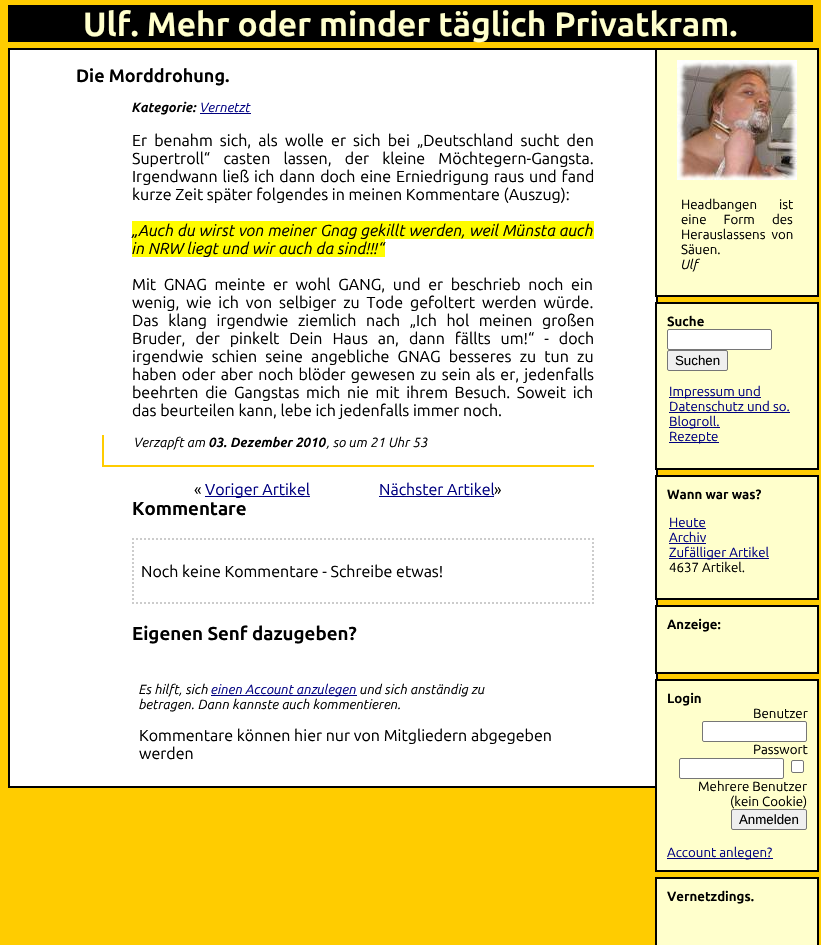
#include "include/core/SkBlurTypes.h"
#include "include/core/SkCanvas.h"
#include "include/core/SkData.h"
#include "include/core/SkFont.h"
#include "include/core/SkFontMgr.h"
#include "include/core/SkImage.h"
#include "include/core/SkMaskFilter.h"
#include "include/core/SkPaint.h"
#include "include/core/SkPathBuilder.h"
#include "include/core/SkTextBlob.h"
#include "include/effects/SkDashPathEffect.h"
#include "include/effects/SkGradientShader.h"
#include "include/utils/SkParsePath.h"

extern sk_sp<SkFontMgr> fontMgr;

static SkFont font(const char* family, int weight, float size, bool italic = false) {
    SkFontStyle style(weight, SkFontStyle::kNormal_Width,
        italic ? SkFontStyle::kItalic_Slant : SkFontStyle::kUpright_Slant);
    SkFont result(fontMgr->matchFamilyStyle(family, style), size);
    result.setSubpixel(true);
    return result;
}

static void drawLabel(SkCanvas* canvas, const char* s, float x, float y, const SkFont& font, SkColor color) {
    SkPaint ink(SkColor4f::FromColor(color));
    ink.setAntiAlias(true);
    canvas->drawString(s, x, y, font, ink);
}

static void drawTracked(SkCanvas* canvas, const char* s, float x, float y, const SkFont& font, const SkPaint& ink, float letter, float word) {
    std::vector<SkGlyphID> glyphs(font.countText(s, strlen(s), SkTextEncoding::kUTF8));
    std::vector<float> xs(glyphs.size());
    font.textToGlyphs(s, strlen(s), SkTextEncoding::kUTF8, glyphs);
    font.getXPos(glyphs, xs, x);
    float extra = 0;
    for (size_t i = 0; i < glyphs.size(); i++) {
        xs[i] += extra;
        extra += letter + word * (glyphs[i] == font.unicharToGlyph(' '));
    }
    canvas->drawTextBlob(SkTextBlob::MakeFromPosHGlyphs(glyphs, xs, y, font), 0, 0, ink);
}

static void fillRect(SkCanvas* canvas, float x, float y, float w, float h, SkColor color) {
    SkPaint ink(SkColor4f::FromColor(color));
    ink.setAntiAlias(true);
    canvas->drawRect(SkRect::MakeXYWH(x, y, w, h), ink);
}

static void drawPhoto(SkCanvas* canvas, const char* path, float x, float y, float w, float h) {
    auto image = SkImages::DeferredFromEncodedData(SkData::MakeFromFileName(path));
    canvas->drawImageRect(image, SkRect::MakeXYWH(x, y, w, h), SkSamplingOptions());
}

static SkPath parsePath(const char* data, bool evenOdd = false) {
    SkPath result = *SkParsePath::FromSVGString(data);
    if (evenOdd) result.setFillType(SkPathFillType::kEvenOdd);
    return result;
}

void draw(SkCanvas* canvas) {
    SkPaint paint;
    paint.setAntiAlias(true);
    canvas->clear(0xFFFFCC00);
    fillRect(canvas, 8, 5, 805, 37, 0xFF000000);
    SkFont font1 = font("Ubuntu", 700, 33.6f);
    drawLabel(canvas, "Ulf. Mehr oder minder täglich Privatkram.", 83, 36, font1, 0xFFFFFFCC);
    paint.setColor(0xFFFFFFFF);
    canvas->drawRect(SkRect::MakeXYWH(9, 49, 648, 738), paint);
    paint.setStroke(true);
    paint.setStrokeWidth(2);
    paint.setColor(0xFF000000);
    canvas->drawRect(SkRect::MakeXYWH(9, 49, 648, 738), paint);
    SkFont font2 = font("Ubuntu", 700, 18);
    drawLabel(canvas, "Die Morddrohung.", 76, 82, font2, 0xFF000000);
    SkFont font3 = font("Ubuntu", 700, 13.3f, true);
    drawLabel(canvas, "Kategorie:", 132, 112, font3, 0xFF000000);
    SkFont font4 = font("Ubuntu", 400, 13.3f, true);
    drawLabel(canvas, "Vernetzt", 200, 112, font4, 0xFF000080);
    fillRect(canvas, 200, 113, 51, 1, 0xFF000080);
    SkFont font5 = font("Ubuntu", 400, 16);
    paint.setStroke(false);
    drawTracked(canvas, "Er benahm sich, als wolle er sich bei „Deutschland sucht den", 132, 146, font5, paint, 0, 3.5f);
    drawTracked(canvas, "Supertroll“ casten lassen, der kleine Möchtegern-Gangsta.", 132, 164, font5, paint, 0, 9.5f);
    drawTracked(canvas, "Irgendwann ließ ich dann doch eine Erniedrigung raus und fand", 132, 182, font5, paint, 0, 1.25f);
    drawLabel(canvas, "kurze Zeit später folgendes in meinen Kommentare (Auszug):", 132, 200, font5, 0xFF000000);
    fillRect(canvas, 132, 221, 462, 18, 0xFFFFFC00);
    SkFont font6 = font("Ubuntu", 400, 16, true);
    drawTracked(canvas, "„Auch du wirst von meiner Gnag gekillt werden, weil Münsta auch", 132, 236, font6, paint, 0, 0.25f);
    fillRect(canvas, 132, 239, 253, 18, 0xFFFFFC00);
    drawLabel(canvas, "in NRW liegt und wir auch da sind!!!“", 132, 254, font6, 0xFF000000);
    drawTracked(canvas, "Mit GNAG meinte er wohl GANG, und er beschrieb noch ein", 132, 290, font5, paint, 0, 4);
    drawTracked(canvas, "wenig, wie ich von selbiger zu Tode gefoltert werden würde.", 132, 308, font5, paint, 0, 3.25f);
    drawTracked(canvas, "Das klang irgendwie ziemlich nach „Ich hol meinen großen", 132, 326, font5, paint, 0, 6);
    drawTracked(canvas, "Bruder, der pinkelt Dein Haus an, dann fällts um!“ - doch", 132, 344, font5, paint, 0, 6.25f);
    drawTracked(canvas, "irgendwie schien seine angebliche GNAG besseres zu tun zu", 132, 362, font5, paint, 0, 4.5f);
    drawTracked(canvas, "haben oder aber noch blöder gewesen zu sein als er, jedenfalls", 132, 380, font5, paint, 0, 1.5f);
    drawTracked(canvas, "beehrten die Gangstas mich nie mit ihrem Besuch. Soweit ich", 132, 398, font5, paint, 0, 3);
    drawLabel(canvas, "das beurteilen kann, lebe ich jedenfalls immer noch.", 132, 416, font5, 0xFF000000);
    fillRect(canvas, 102, 465, 492, 2, 0xFFFFCC00);
    fillRect(canvas, 102, 435, 2, 32, 0xFFFFCC00);
    drawLabel(canvas, "Verzapft am", 134, 447, font4, 0xFF000000);
    drawLabel(canvas, "03. Dezember 2010", 209, 447, font3, 0xFF000000);
    drawLabel(canvas, ", so um 21 Uhr 53", 327, 447, font4, 0xFF000000);
    drawLabel(canvas, "«", 194, 495, font5, 0xFF000000);
    fillRect(canvas, 205, 496, 105, 1, 0xFF000080);
    drawLabel(canvas, "Voriger Artikel", 205, 495, font5, 0xFF000080);
    drawLabel(canvas, "Nächster Artikel", 379, 495, font5, 0xFF000080);
    fillRect(canvas, 379, 496, 115, 1, 0xFF000080);
    drawLabel(canvas, "»", 494, 495, font5, 0xFF000000);
    SkFont font7 = font("Ubuntu", 700, 18.75f);
    drawLabel(canvas, "Kommentare", 132, 515, font7, 0xFF000000);
    paint.setStroke(true);
    paint.setColor(0xFFCCCCCC);
    paint.setPathEffect(SkDashPathEffect::Make({{2, 2}}, 0));
    canvas->drawPath(parsePath("M132 539H594"), paint);
    paint.setPathEffect(nullptr);
    paint.setPathEffect(SkDashPathEffect::Make({{2, 2}}, 0));
    canvas->drawPath(parsePath("M593 538V604"), paint);
    paint.setPathEffect(nullptr);
    paint.setPathEffect(SkDashPathEffect::Make({{2, 2}}, 0));
    canvas->drawPath(parsePath("M132 603H594"), paint);
    paint.setPathEffect(nullptr);
    paint.setPathEffect(SkDashPathEffect::Make({{2, 2}}, 0));
    canvas->drawPath(parsePath("M133 538V604"), paint);
    paint.setPathEffect(nullptr);
    drawLabel(canvas, "Noch keine Kommentare - Schreibe etwas!", 141, 577, font5, 0xFF000000);
    drawLabel(canvas, "Eigenen Senf dazugeben?", 132, 640, font7, 0xFF000000);
    drawLabel(canvas, "Es hilft, sich", 139, 694, font4, 0xFF000000);
    fillRect(canvas, 211, 695, 146, 1, 0xFF000080);
    drawLabel(canvas, "einen Account anzulegen", 211, 694, font4, 0xFF000080);
    drawLabel(canvas, "und sich anständig zu", 360, 694, font4, 0xFF000000);
    drawLabel(canvas, "betragen. Dann kannste auch kommentieren.", 139, 709, font4, 0xFF000000);
    drawLabel(canvas, "Kommentare können hier nur von Mitgliedern abgegeben", 139, 741, font5, 0xFF000000);
    drawLabel(canvas, "werden", 139, 759, font5, 0xFF000000);
    paint.setStroke(false);
    paint.setColor(0xFFFFFFCC);
    canvas->drawRect(SkRect::MakeXYWH(656, 49, 162, 247), paint);
    paint.setStroke(true);
    paint.setColor(0xFF000000);
    canvas->drawRect(SkRect::MakeXYWH(656, 49, 162, 247), paint);
    drawPhoto(canvas, "assets/img1.png", 677, 60, 120, 120);
    SkFont font8 = font("Ubuntu", 400, 13.3f);
    paint.setStroke(false);
    drawTracked(canvas, "Headbangen ist", 681, 209, font8, paint, 0, 19);
    drawTracked(canvas, "eine Form des", 681, 224, font8, paint, 0, 14);
    drawTracked(canvas, "Herauslassens von", 681, 239, font8, paint, 0, 3);
    drawLabel(canvas, "Säuen.", 681, 254, font8, 0xFF000000);
    drawLabel(canvas, "Ulf", 681, 269, font4, 0xFF000000);
    paint.setColor(0xFFFFFFCC);
    canvas->drawRect(SkRect::MakeXYWH(656, 303, 162, 166), paint);
    paint.setStroke(true);
    paint.setColor(0xFF000000);
    canvas->drawRect(SkRect::MakeXYWH(656, 303, 162, 166), paint);
    SkFont font9 = font("Ubuntu", 700, 13.3f);
    drawLabel(canvas, "Suche", 667, 326, font9, 0xFF000000);
    paint.setStroke(false);
    paint.setColor(0xFFFFFFFF);
    canvas->drawRoundRect(SkRect::MakeXYWH(667.5f, 329.5f, 104, 20), 1.5f, 1.5f, paint);
    paint.setStroke(true);
    paint.setStrokeWidth(1);
    paint.setColor(0xFF767676);
    canvas->drawRoundRect(SkRect::MakeXYWH(667.5f, 329.5f, 104, 20), 1.5f, 1.5f, paint);
    paint.setStroke(false);
    paint.setColor(0xFFEFEFEF);
    canvas->drawRoundRect(SkRect::MakeXYWH(667.5f, 350.5f, 60, 20), 1.5f, 1.5f, paint);
    paint.setStroke(true);
    paint.setColor(0xFF767676);
    canvas->drawRoundRect(SkRect::MakeXYWH(667.5f, 350.5f, 60, 20), 1.5f, 1.5f, paint);
    SkFont font10 = font("Liberation Sans", 400, 13.3f);
    drawLabel(canvas, "Suchen", 675, 365, font10, 0xFF000000);
    fillRect(canvas, 669, 397, 92, 1, 0xFF000080);
    drawLabel(canvas, "Impressum und", 669, 396, font8, 0xFF000080);
    drawLabel(canvas, "Datenschutz und so.", 669, 411, font8, 0xFF000080);
    fillRect(canvas, 669, 412, 121, 1, 0xFF000080);
    fillRect(canvas, 669, 427, 51, 1, 0xFF000080);
    drawLabel(canvas, "Blogroll.", 669, 426, font8, 0xFF000080);
    fillRect(canvas, 669, 442, 50, 1, 0xFF000080);
    drawLabel(canvas, "Rezepte", 669, 441, font8, 0xFF000080);
    paint.setStroke(false);
    paint.setColor(0xFFFFFFCC);
    canvas->drawRect(SkRect::MakeXYWH(656, 476, 162, 123), paint);
    paint.setStroke(true);
    paint.setStrokeWidth(2);
    paint.setColor(0xFF000000);
    canvas->drawRect(SkRect::MakeXYWH(656, 476, 162, 123), paint);
    drawLabel(canvas, "Wann war was?", 667, 499, font9, 0xFF000000);
    drawLabel(canvas, "Heute", 669, 527, font8, 0xFF000080);
    fillRect(canvas, 669, 528, 37, 1, 0xFF000080);
    drawLabel(canvas, "Archiv", 669, 542, font8, 0xFF000080);
    fillRect(canvas, 669, 543, 37, 1, 0xFF000080);
    fillRect(canvas, 669, 558, 100, 1, 0xFF000080);
    drawLabel(canvas, "Zufälliger Artikel", 669, 557, font8, 0xFF000080);
    drawLabel(canvas, "4637 Artikel.", 669, 572, font8, 0xFF000000);
    paint.setStroke(false);
    paint.setColor(0xFFFFFFCC);
    canvas->drawRect(SkRect::MakeXYWH(656, 606, 162, 67), paint);
    paint.setStroke(true);
    paint.setColor(0xFF000000);
    canvas->drawRect(SkRect::MakeXYWH(656, 606, 162, 67), paint);
    drawLabel(canvas, "Anzeige:", 667, 629, font9, 0xFF000000);
    paint.setStroke(false);
    paint.setColor(0xFFFFFFCC);
    canvas->drawRect(SkRect::MakeXYWH(656, 680, 162, 191), paint);
    paint.setStroke(true);
    paint.setColor(0xFF000000);
    canvas->drawRect(SkRect::MakeXYWH(656, 680, 162, 191), paint);
    drawLabel(canvas, "Login", 667, 703, font9, 0xFF000000);
    drawLabel(canvas, "Benutzer", 753, 718, font8, 0xFF000000);
    paint.setStroke(false);
    paint.setColor(0xFFFFFFFF);
    canvas->drawRoundRect(SkRect::MakeXYWH(702.5f, 721.5f, 104, 20), 1.5f, 1.5f, paint);
    paint.setStroke(true);
    paint.setStrokeWidth(1);
    paint.setColor(0xFF767676);
    canvas->drawRoundRect(SkRect::MakeXYWH(702.5f, 721.5f, 104, 20), 1.5f, 1.5f, paint);
    drawLabel(canvas, "Passwort", 753, 754, font8, 0xFF000000);
    paint.setStroke(false);
    paint.setColor(0xFFFFFFFF);
    canvas->drawRoundRect(SkRect::MakeXYWH(679.5f, 758.5f, 104, 20), 1.5f, 1.5f, paint);
    paint.setStroke(true);
    paint.setColor(0xFF767676);
    canvas->drawRoundRect(SkRect::MakeXYWH(679.5f, 758.5f, 104, 20), 1.5f, 1.5f, paint);
    paint.setStroke(false);
    paint.setColor(0xFFFFFFFF);
    canvas->drawRoundRect(SkRect::MakeXYWH(791.5f, 760.5f, 12, 12), 1.5f, 1.5f, paint);
    paint.setStroke(true);
    paint.setColor(0xFF767676);
    canvas->drawRoundRect(SkRect::MakeXYWH(791.5f, 760.5f, 12, 12), 1.5f, 1.5f, paint);
    drawLabel(canvas, "Mehrere Benutzer", 698, 791, font8, 0xFF000000);
    drawLabel(canvas, "(kein Cookie)", 730, 806, font8, 0xFF000000);
    paint.setStroke(false);
    paint.setColor(0xFFEFEFEF);
    canvas->drawRoundRect(SkRect::MakeXYWH(731.5f, 809.5f, 75, 20), 1.5f, 1.5f, paint);
    paint.setStroke(true);
    paint.setColor(0xFF767676);
    canvas->drawRoundRect(SkRect::MakeXYWH(731.5f, 809.5f, 75, 20), 1.5f, 1.5f, paint);
    drawLabel(canvas, "Anmelden", 739, 824, font10, 0xFF000000);
    fillRect(canvas, 667, 858, 106, 1, 0xFF000080);
    drawLabel(canvas, "Account anlegen?", 667, 857, font8, 0xFF000080);
    paint.setStroke(false);
    paint.setColor(0xFFFFFFCC);
    canvas->drawRect(SkRect::MakeXYWH(656, 878, 162, 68), paint);
    paint.setStroke(true);
    paint.setStrokeWidth(2);
    paint.setColor(0xFF000000);
    canvas->drawRect(SkRect::MakeXYWH(656, 878, 162, 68), paint);
    drawLabel(canvas, "Vernetzdings.", 667, 901, font9, 0xFF000000);
}
